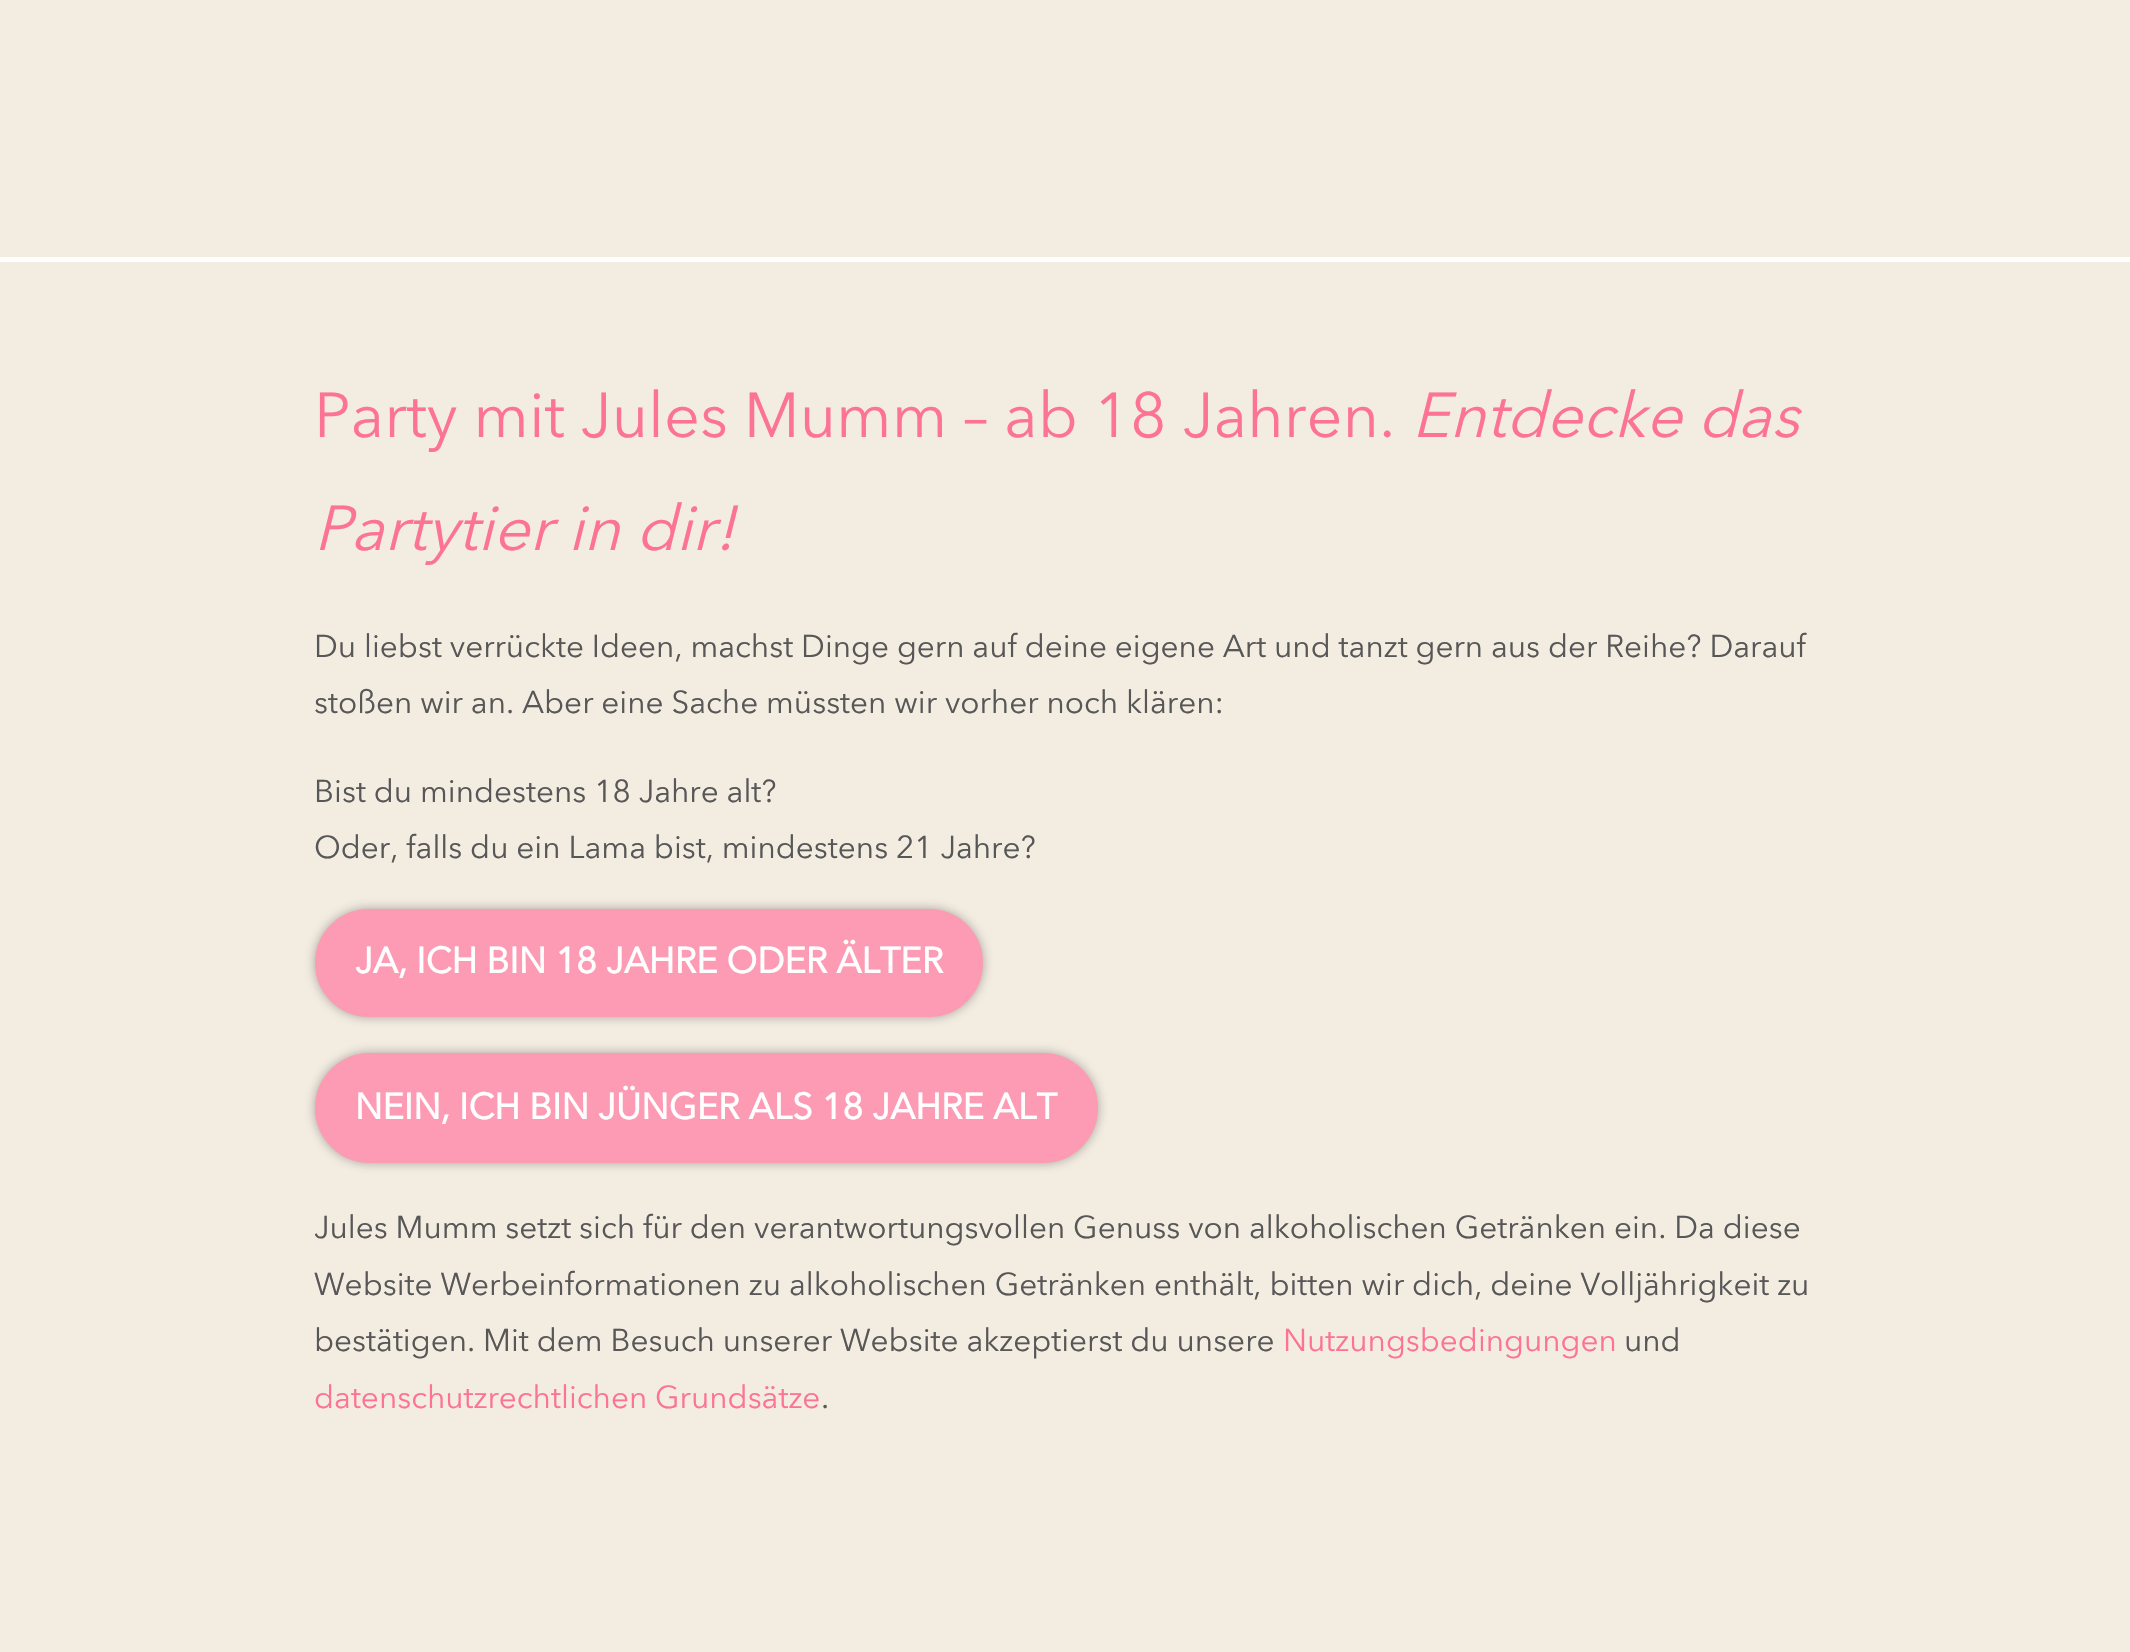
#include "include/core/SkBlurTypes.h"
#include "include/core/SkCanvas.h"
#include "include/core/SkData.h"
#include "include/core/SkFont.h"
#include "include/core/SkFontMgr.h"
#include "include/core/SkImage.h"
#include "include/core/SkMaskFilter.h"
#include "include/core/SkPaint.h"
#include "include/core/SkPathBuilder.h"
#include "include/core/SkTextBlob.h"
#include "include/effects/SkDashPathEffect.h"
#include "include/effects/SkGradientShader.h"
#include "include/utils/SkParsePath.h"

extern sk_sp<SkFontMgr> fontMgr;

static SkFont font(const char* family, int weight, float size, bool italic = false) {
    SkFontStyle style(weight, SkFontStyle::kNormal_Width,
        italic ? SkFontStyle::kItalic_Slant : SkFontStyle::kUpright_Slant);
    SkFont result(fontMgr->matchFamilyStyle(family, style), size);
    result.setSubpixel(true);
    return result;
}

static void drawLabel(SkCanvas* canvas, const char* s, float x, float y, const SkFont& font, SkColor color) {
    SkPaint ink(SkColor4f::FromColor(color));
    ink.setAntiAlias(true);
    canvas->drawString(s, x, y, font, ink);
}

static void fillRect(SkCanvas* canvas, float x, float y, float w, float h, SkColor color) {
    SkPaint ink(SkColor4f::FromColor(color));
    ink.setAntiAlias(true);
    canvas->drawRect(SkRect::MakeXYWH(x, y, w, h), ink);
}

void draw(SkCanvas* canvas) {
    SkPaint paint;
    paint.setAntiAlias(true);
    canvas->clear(0xFFF3ECE1);
    fillRect(canvas, 0, 257, 2130, 5, 0xFFFFFFFF);
    SkFont font1 = font("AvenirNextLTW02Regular", 400, 63);
    drawLabel(canvas, "Party mit Jules Mumm – ab 18 Jahren.", 314, 437, font1, 0xFFFD7396);
    SkFont font2 = font("AvenirNextLTW02Regular", 400, 63, true);
    drawLabel(canvas, "Entdecke das", 1412, 437, font2, 0xFFFD7396);
    drawLabel(canvas, "Partytier in dir!", 314, 550, font2, 0xFFFD7396);
    SkFont font3 = font("AvenirNextLTW02Regular", 400, 31.5f);
    drawLabel(canvas, "Du liebst verrückte Ideen, machst Dinge gern auf deine eigene Art und tanzt gern aus der Reihe? Darauf", 314, 657, font3, 0xFF575757);
    drawLabel(canvas, "stoßen wir an. Aber eine Sache müssten wir vorher noch klären:", 314, 713, font3, 0xFF575757);
    drawLabel(canvas, "Bist du mindestens 18 Jahre alt?", 314, 802, font3, 0xFF575757);
    drawLabel(canvas, "Oder, falls du ein Lama bist, mindestens 21 Jahre?", 314, 858, font3, 0xFF575757);
    paint.setColor(0x80575757);
    paint.setMaskFilter(SkMaskFilter::MakeBlur(kNormal_SkBlurStyle, 5.5f));
    canvas->drawRoundRect(SkRect::MakeXYWH(315, 909, 668, 108), 54, 54, paint);
    paint.setMaskFilter(nullptr);
    paint.setColor(0xFFFC9BB3);
    canvas->drawRoundRect(SkRect::MakeXYWH(317.5f, 911.5f, 663, 103), 51.5f, 51.5f, paint);
    paint.setStroke(true);
    paint.setStrokeWidth(5);
    canvas->drawRoundRect(SkRect::MakeXYWH(317.5f, 911.5f, 663, 103), 51.5f, 51.5f, paint);
    SkFont font4 = font("AvenirNextLTW02Regular", 700, 36);
    drawLabel(canvas, "JA, ICH BIN 18 JAHRE ODER ÄLTER", 355, 973, font4, 0xFFFFFFFF);
    paint.setStroke(false);
    paint.setColor(0x80575757);
    paint.setMaskFilter(SkMaskFilter::MakeBlur(kNormal_SkBlurStyle, 5.5f));
    canvas->drawRoundRect(SkRect::MakeXYWH(315, 1053, 783, 110), 55, 55, paint);
    paint.setMaskFilter(nullptr);
    paint.setColor(0xFFFC9BB3);
    canvas->drawRoundRect(SkRect::MakeXYWH(317.5f, 1055.5f, 778, 105), 52.5f, 52.5f, paint);
    paint.setStroke(true);
    canvas->drawRoundRect(SkRect::MakeXYWH(317.5f, 1055.5f, 778, 105), 52.5f, 52.5f, paint);
    drawLabel(canvas, "NEIN, ICH BIN JÜNGER ALS 18 JAHRE ALT", 355, 1119, font4, 0xFFFFFFFF);
    drawLabel(canvas, "Jules Mumm setzt sich für den verantwortungsvollen Genuss von alkoholischen Getränken ein. Da diese", 314, 1238, font3, 0xFF575757);
    drawLabel(canvas, "Website Werbeinformationen zu alkoholischen Getränken enthält, bitten wir dich, deine Volljährigkeit zu", 314, 1295, font3, 0xFF575757);
    drawLabel(canvas, "bestätigen. Mit dem Besuch unserer Website akzeptierst du unsere", 314, 1351, font3, 0xFF575757);
    drawLabel(canvas, "Nutzungsbedingungen", 1283, 1351, font3, 0xFFFD7396);
    drawLabel(canvas, "und", 1624, 1351, font3, 0xFF575757);
    drawLabel(canvas, "datenschutzrechtlichen Grundsätze", 314, 1408, font3, 0xFFFD7396);
    drawLabel(canvas, ".", 821, 1408, font3, 0xFF575757);
}
